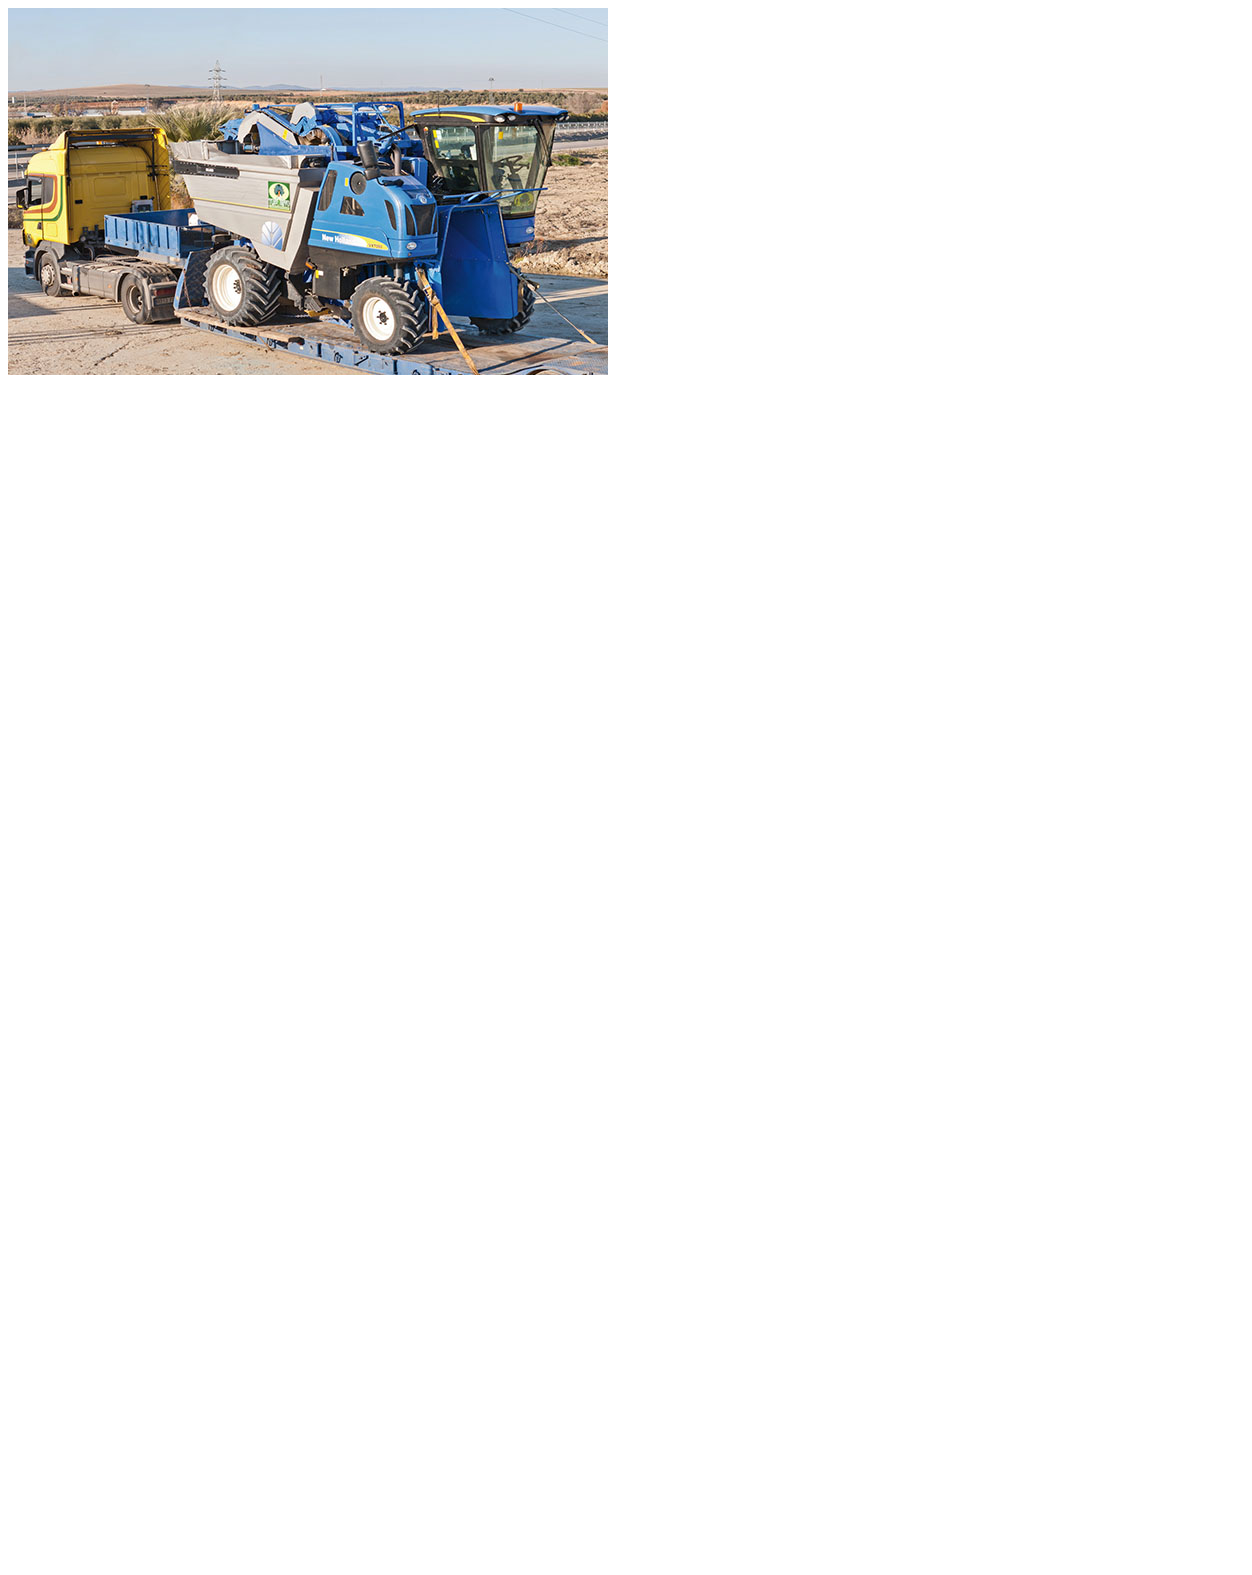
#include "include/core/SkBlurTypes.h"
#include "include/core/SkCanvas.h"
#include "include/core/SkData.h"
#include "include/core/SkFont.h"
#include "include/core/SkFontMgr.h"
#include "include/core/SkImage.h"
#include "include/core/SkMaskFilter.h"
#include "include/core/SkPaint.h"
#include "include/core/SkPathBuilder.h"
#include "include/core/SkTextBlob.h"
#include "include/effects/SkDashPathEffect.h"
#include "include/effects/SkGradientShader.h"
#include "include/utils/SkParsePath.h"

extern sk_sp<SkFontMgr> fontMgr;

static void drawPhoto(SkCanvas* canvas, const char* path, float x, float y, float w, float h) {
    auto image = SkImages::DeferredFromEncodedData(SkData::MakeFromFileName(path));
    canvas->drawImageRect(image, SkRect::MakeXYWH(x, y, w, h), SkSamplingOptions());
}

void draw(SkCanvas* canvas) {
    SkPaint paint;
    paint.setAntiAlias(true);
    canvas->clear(0xFFFFFFFF);
    drawPhoto(canvas, "assets/img1.png", 8, 8, 600, 367);
}
